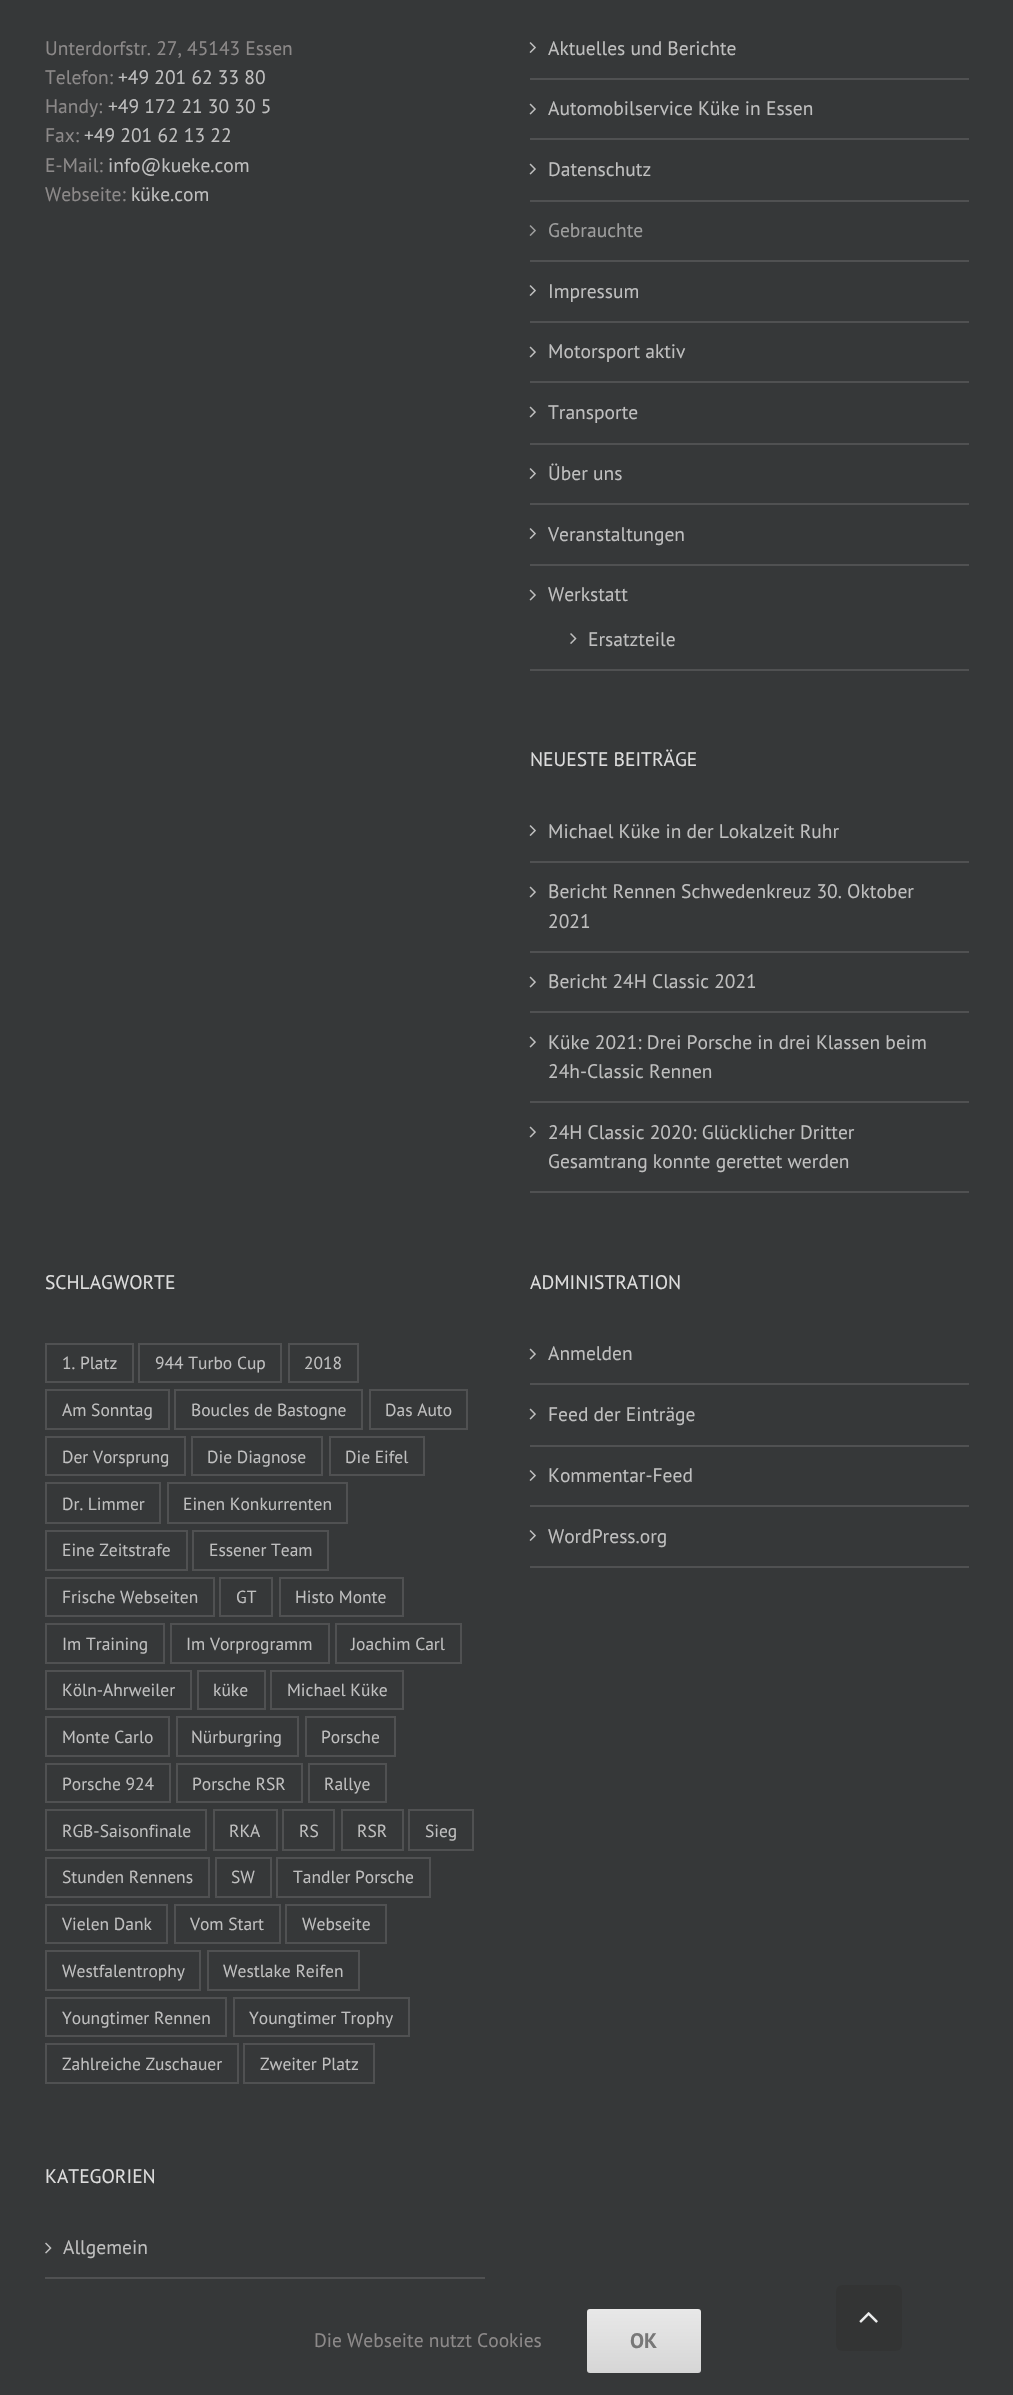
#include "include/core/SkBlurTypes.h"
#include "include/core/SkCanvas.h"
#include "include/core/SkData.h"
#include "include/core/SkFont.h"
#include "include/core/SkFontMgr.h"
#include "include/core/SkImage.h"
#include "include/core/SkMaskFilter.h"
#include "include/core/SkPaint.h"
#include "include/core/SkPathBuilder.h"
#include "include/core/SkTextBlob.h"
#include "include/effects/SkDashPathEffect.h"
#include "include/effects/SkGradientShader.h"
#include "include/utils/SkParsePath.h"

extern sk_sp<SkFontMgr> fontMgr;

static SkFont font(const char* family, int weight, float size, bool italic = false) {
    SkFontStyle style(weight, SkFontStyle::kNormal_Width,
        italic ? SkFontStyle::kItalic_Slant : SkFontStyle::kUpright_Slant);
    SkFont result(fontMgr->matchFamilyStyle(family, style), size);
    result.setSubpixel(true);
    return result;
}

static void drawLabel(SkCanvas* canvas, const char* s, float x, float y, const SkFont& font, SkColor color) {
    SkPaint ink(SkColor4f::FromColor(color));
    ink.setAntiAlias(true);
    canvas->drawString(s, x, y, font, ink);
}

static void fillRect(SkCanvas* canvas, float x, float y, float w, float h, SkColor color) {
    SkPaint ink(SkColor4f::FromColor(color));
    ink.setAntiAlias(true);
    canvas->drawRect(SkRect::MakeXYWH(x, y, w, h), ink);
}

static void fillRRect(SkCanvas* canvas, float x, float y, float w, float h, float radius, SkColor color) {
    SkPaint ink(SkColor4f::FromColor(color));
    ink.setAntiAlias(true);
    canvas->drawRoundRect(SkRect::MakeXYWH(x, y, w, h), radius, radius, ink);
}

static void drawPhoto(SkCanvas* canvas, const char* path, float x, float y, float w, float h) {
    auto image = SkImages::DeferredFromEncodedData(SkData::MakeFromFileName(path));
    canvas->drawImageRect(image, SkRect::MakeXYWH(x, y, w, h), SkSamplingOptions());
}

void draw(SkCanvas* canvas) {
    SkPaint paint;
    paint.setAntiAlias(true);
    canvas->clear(0xFF363839);
    SkFont font1 = font("PT Sans", 400, 19.5f);
    drawLabel(canvas, "Unterdorfstr. 27, 45143 Essen", 45, 55, font1, 0xFF8C8989);
    drawLabel(canvas, "Telefon:", 45, 84, font1, 0xFF8C8989);
    drawLabel(canvas, "+49 201 62 33 80", 118, 84, font1, 0xFFBFBFBF);
    drawLabel(canvas, "Handy:", 45, 113, font1, 0xFF8C8989);
    drawLabel(canvas, "+49 172 21 30 30 5", 108, 113, font1, 0xFFBFBFBF);
    drawLabel(canvas, "Fax:", 45, 142, font1, 0xFF8C8989);
    drawLabel(canvas, "+49 201 62 13 22", 84, 142, font1, 0xFFBFBFBF);
    drawLabel(canvas, "E-Mail:", 45, 172, font1, 0xFF8C8989);
    drawLabel(canvas, "info@kueke.com", 108, 172, font1, 0xFFBFBFBF);
    drawLabel(canvas, "Webseite:", 45, 201, font1, 0xFF8C8989);
    drawLabel(canvas, "küke.com", 131, 201, font1, 0xFFBFBFBF);
    fillRect(canvas, 530, 78, 439, 2, 0xFF505152);
    drawPhoto(canvas, "assets/img1.png", 529, 42, 7, 11);
    drawLabel(canvas, "Aktuelles und Berichte", 548, 55, font1, 0xFFBFBFBF);
    fillRect(canvas, 530, 138, 439, 2, 0xFF505152);
    drawPhoto(canvas, "assets/img2.png", 529, 103, 7, 12);
    drawLabel(canvas, "Automobilservice Küke in Essen", 548, 115, font1, 0xFFBFBFBF);
    fillRect(canvas, 530, 200, 439, 2, 0xFF505152);
    drawPhoto(canvas, "assets/img2.png", 529, 163, 7, 12);
    drawLabel(canvas, "Datenschutz", 548, 176, font1, 0xFFBFBFBF);
    fillRect(canvas, 530, 260, 439, 2, 0xFF505152);
    drawPhoto(canvas, "assets/img3.png", 529, 225, 7, 11);
    drawLabel(canvas, "Gebrauchte", 548, 237, font1, 0xFF9E9E9E);
    fillRect(canvas, 530, 321, 439, 2, 0xFF505152);
    drawPhoto(canvas, "assets/img1.png", 529, 285, 7, 11);
    drawLabel(canvas, "Impressum", 548, 298, font1, 0xFFBFBFBF);
    fillRect(canvas, 530, 381, 439, 2, 0xFF505152);
    drawPhoto(canvas, "assets/img2.png", 529, 346, 7, 12);
    drawLabel(canvas, "Motorsport aktiv", 548, 358, font1, 0xFFBFBFBF);
    fillRect(canvas, 530, 443, 439, 2, 0xFF505152);
    drawPhoto(canvas, "assets/img2.png", 529, 406, 7, 12);
    drawLabel(canvas, "Transporte", 548, 419, font1, 0xFFBFBFBF);
    fillRect(canvas, 530, 503, 439, 2, 0xFF505152);
    drawPhoto(canvas, "assets/img1.png", 529, 468, 7, 11);
    drawLabel(canvas, "Über uns", 548, 480, font1, 0xFFBFBFBF);
    fillRect(canvas, 530, 564, 439, 2, 0xFF505152);
    drawPhoto(canvas, "assets/img1.png", 529, 528, 7, 11);
    drawLabel(canvas, "Veranstaltungen", 548, 541, font1, 0xFFBFBFBF);
    fillRect(canvas, 530, 669, 439, 2, 0xFF505152);
    drawPhoto(canvas, "assets/img2.png", 529, 589, 7, 12);
    drawLabel(canvas, "Werkstatt", 548, 601, font1, 0xFFBFBFBF);
    drawPhoto(canvas, "assets/img4.png", 570, 633, 7, 11);
    drawLabel(canvas, "Ersatzteile", 588, 646, font1, 0xFFBFBFBF);
    drawLabel(canvas, "NEUESTE BEITRÄGE", 530, 766, font1, 0xFFDDDDDD);
    fillRect(canvas, 530, 861, 439, 2, 0xFF505152);
    drawPhoto(canvas, "assets/img1.png", 529, 825, 7, 11);
    drawLabel(canvas, "Michael Küke in der Lokalzeit Ruhr", 548, 838, font1, 0xFFBFBFBF);
    fillRect(canvas, 530, 951, 439, 2, 0xFF505152);
    drawPhoto(canvas, "assets/img2.png", 529, 886, 7, 12);
    drawLabel(canvas, "Bericht Rennen Schwedenkreuz 30. Oktober", 548, 898, font1, 0xFFBFBFBF);
    drawLabel(canvas, "2021", 548, 928, font1, 0xFFBFBFBF);
    fillRect(canvas, 530, 1011, 439, 2, 0xFF505152);
    drawPhoto(canvas, "assets/img2.png", 529, 976, 7, 12);
    drawLabel(canvas, "Bericht 24H Classic 2021", 548, 988, font1, 0xFFBFBFBF);
    fillRect(canvas, 530, 1101, 439, 2, 0xFF505152);
    drawPhoto(canvas, "assets/img2.png", 529, 1036, 7, 12);
    drawLabel(canvas, "Küke 2021: Drei Porsche in drei Klassen beim", 548, 1049, font1, 0xFFBFBFBF);
    drawLabel(canvas, "24h-Classic Rennen", 548, 1078, font1, 0xFFBFBFBF);
    fillRect(canvas, 530, 1191, 439, 2, 0xFF505152);
    drawPhoto(canvas, "assets/img2.png", 529, 1126, 7, 12);
    drawLabel(canvas, "24H Classic 2020: Glücklicher Dritter", 548, 1139, font1, 0xFFBFBFBF);
    drawLabel(canvas, "Gesamtrang konnte gerettet werden", 548, 1168, font1, 0xFFBFBFBF);
    drawLabel(canvas, "SCHLAGWORTE", 45, 1289, font1, 0xFFDDDDDD);
    paint.setStroke(true);
    paint.setStrokeWidth(2);
    paint.setColor(0xFF505152);
    canvas->drawRect(SkRect::MakeXYWH(46, 1344, 87, 38), paint);
    SkFont font2 = font("PT Sans", 400, 17.5f);
    drawLabel(canvas, "1. Platz", 62, 1369, font2, 0xFFBFBFBF);
    canvas->drawRect(SkRect::MakeXYWH(139, 1344, 142, 38), paint);
    drawLabel(canvas, "944 Turbo Cup", 155, 1369, font2, 0xFFBFBFBF);
    canvas->drawRect(SkRect::MakeXYWH(289, 1344, 69, 38), paint);
    drawLabel(canvas, "2018", 304, 1369, font2, 0xFFBFBFBF);
    canvas->drawRect(SkRect::MakeXYWH(46, 1390, 123, 39), paint);
    drawLabel(canvas, "Am Sonntag", 62, 1416, font2, 0xFFBFBFBF);
    canvas->drawRect(SkRect::MakeXYWH(175, 1390, 187, 39), paint);
    drawLabel(canvas, "Boucles de Bastogne", 191, 1416, font2, 0xFFBFBFBF);
    canvas->drawRect(SkRect::MakeXYWH(370, 1390, 97, 39), paint);
    drawLabel(canvas, "Das Auto", 385, 1416, font2, 0xFFBFBFBF);
    canvas->drawRect(SkRect::MakeXYWH(46, 1437, 139, 38), paint);
    drawLabel(canvas, "Der Vorsprung", 62, 1463, font2, 0xFFBFBFBF);
    canvas->drawRect(SkRect::MakeXYWH(192, 1437, 130, 38), paint);
    drawLabel(canvas, "Die Diagnose", 207, 1463, font2, 0xFFBFBFBF);
    canvas->drawRect(SkRect::MakeXYWH(330, 1437, 94, 38), paint);
    drawLabel(canvas, "Die Eifel", 345, 1463, font2, 0xFFBFBFBF);
    canvas->drawRect(SkRect::MakeXYWH(46, 1483, 114, 40), paint);
    drawLabel(canvas, "Dr. Limmer", 62, 1510, font2, 0xFFBFBFBF);
    canvas->drawRect(SkRect::MakeXYWH(168, 1483, 179, 40), paint);
    drawLabel(canvas, "Einen Konkurrenten", 183, 1510, font2, 0xFFBFBFBF);
    canvas->drawRect(SkRect::MakeXYWH(46, 1531, 141, 39), paint);
    drawLabel(canvas, "Eine Zeitstrafe", 62, 1556, font2, 0xFFBFBFBF);
    canvas->drawRect(SkRect::MakeXYWH(193, 1531, 135, 39), paint);
    drawLabel(canvas, "Essener Team", 209, 1556, font2, 0xFFBFBFBF);
    canvas->drawRect(SkRect::MakeXYWH(46, 1578, 168, 38), paint);
    drawLabel(canvas, "Frische Webseiten", 62, 1603, font2, 0xFFBFBFBF);
    canvas->drawRect(SkRect::MakeXYWH(220, 1578, 52, 38), paint);
    drawLabel(canvas, "GT", 236, 1603, font2, 0xFFBFBFBF);
    canvas->drawRect(SkRect::MakeXYWH(280, 1578, 123, 38), paint);
    drawLabel(canvas, "Histo Monte", 295, 1603, font2, 0xFFBFBFBF);
    canvas->drawRect(SkRect::MakeXYWH(46, 1624, 118, 39), paint);
    drawLabel(canvas, "Im Training", 62, 1650, font2, 0xFFBFBFBF);
    canvas->drawRect(SkRect::MakeXYWH(171, 1624, 158, 39), paint);
    drawLabel(canvas, "Im Vorprogramm", 186, 1650, font2, 0xFFBFBFBF);
    canvas->drawRect(SkRect::MakeXYWH(336, 1624, 125, 39), paint);
    drawLabel(canvas, "Joachim Carl", 351, 1650, font2, 0xFFBFBFBF);
    canvas->drawRect(SkRect::MakeXYWH(46, 1671, 145, 38), paint);
    drawLabel(canvas, "Köln-Ahrweiler", 62, 1696, font2, 0xFFBFBFBF);
    canvas->drawRect(SkRect::MakeXYWH(198, 1671, 67, 38), paint);
    drawLabel(canvas, "küke", 213, 1696, font2, 0xFFBFBFBF);
    canvas->drawRect(SkRect::MakeXYWH(271, 1671, 132, 38), paint);
    drawLabel(canvas, "Michael Küke", 287, 1696, font2, 0xFFBFBFBF);
    canvas->drawRect(SkRect::MakeXYWH(46, 1717, 123, 39), paint);
    drawLabel(canvas, "Monte Carlo", 62, 1743, font2, 0xFFBFBFBF);
    canvas->drawRect(SkRect::MakeXYWH(177, 1717, 121, 39), paint);
    drawLabel(canvas, "Nürburgring", 191, 1743, font2, 0xFFBFBFBF);
    canvas->drawRect(SkRect::MakeXYWH(306, 1717, 89, 39), paint);
    drawLabel(canvas, "Porsche", 321, 1743, font2, 0xFFBFBFBF);
    canvas->drawRect(SkRect::MakeXYWH(46, 1764, 124, 38), paint);
    drawLabel(canvas, "Porsche 924", 62, 1790, font2, 0xFFBFBFBF);
    canvas->drawRect(SkRect::MakeXYWH(177, 1764, 125, 38), paint);
    drawLabel(canvas, "Porsche RSR", 192, 1790, font2, 0xFFBFBFBF);
    canvas->drawRect(SkRect::MakeXYWH(309, 1764, 77, 38), paint);
    drawLabel(canvas, "Rallye", 324, 1790, font2, 0xFFBFBFBF);
    canvas->drawRect(SkRect::MakeXYWH(46, 1810, 160, 40), paint);
    drawLabel(canvas, "RGB-Saisonfinale", 62, 1837, font2, 0xFFBFBFBF);
    canvas->drawRect(SkRect::MakeXYWH(214, 1810, 63, 40), paint);
    drawLabel(canvas, "RKA", 229, 1837, font2, 0xFFBFBFBF);
    canvas->drawRect(SkRect::MakeXYWH(283, 1810, 51, 40), paint);
    drawLabel(canvas, "RS", 299, 1837, font2, 0xFFBFBFBF);
    canvas->drawRect(SkRect::MakeXYWH(342, 1810, 61, 40), paint);
    drawLabel(canvas, "RSR", 357, 1837, font2, 0xFFBFBFBF);
    canvas->drawRect(SkRect::MakeXYWH(409, 1810, 64, 40), paint);
    drawLabel(canvas, "Sieg", 425, 1837, font2, 0xFFBFBFBF);
    canvas->drawRect(SkRect::MakeXYWH(46, 1858, 163, 39), paint);
    drawLabel(canvas, "Stunden Rennens", 62, 1883, font2, 0xFFBFBFBF);
    canvas->drawRect(SkRect::MakeXYWH(216, 1858, 55, 39), paint);
    drawLabel(canvas, "SW", 231, 1883, font2, 0xFFBFBFBF);
    canvas->drawRect(SkRect::MakeXYWH(277, 1858, 153, 39), paint);
    drawLabel(canvas, "Tandler Porsche", 293, 1883, font2, 0xFFBFBFBF);
    canvas->drawRect(SkRect::MakeXYWH(46, 1905, 121, 38), paint);
    drawLabel(canvas, "Vielen Dank", 62, 1930, font2, 0xFFBFBFBF);
    canvas->drawRect(SkRect::MakeXYWH(175, 1905, 105, 38), paint);
    drawLabel(canvas, "Vom Start", 190, 1930, font2, 0xFFBFBFBF);
    canvas->drawRect(SkRect::MakeXYWH(286, 1905, 100, 38), paint);
    drawLabel(canvas, "Webseite", 302, 1930, font2, 0xFFBFBFBF);
    canvas->drawRect(SkRect::MakeXYWH(46, 1951, 154, 39), paint);
    drawLabel(canvas, "Westfalentrophy", 62, 1977, font2, 0xFFBFBFBF);
    canvas->drawRect(SkRect::MakeXYWH(208, 1951, 151, 39), paint);
    drawLabel(canvas, "Westlake Reifen", 223, 1977, font2, 0xFFBFBFBF);
    canvas->drawRect(SkRect::MakeXYWH(46, 1998, 180, 38), paint);
    drawLabel(canvas, "Youngtimer Rennen", 62, 2024, font2, 0xFFBFBFBF);
    canvas->drawRect(SkRect::MakeXYWH(234, 1998, 175, 38), paint);
    drawLabel(canvas, "Youngtimer Trophy", 249, 2024, font2, 0xFFBFBFBF);
    canvas->drawRect(SkRect::MakeXYWH(46, 2044, 192, 39), paint);
    drawLabel(canvas, "Zahlreiche Zuschauer", 62, 2070, font2, 0xFFBFBFBF);
    canvas->drawRect(SkRect::MakeXYWH(244, 2044, 130, 39), paint);
    drawLabel(canvas, "Zweiter Platz", 260, 2070, font2, 0xFFBFBFBF);
    drawLabel(canvas, "KATEGORIEN", 45, 2183, font1, 0xFFDDDDDD);
    fillRect(canvas, 45, 2277, 440, 2, 0xFF505152);
    drawPhoto(canvas, "assets/img5.png", 45, 2242, 7, 12);
    drawLabel(canvas, "Allgemein", 63, 2254, font1, 0xFFBFBFBF);
    drawLabel(canvas, "ADMINISTRATION", 530, 1289, font1, 0xFFDDDDDD);
    fillRect(canvas, 530, 1383, 439, 2, 0xFF505152);
    drawPhoto(canvas, "assets/img2.png", 529, 1348, 7, 12);
    drawLabel(canvas, "Anmelden", 548, 1360, font1, 0xFFBFBFBF);
    fillRect(canvas, 530, 1445, 439, 2, 0xFF505152);
    drawPhoto(canvas, "assets/img2.png", 529, 1408, 7, 12);
    drawLabel(canvas, "Feed der Einträge", 548, 1421, font1, 0xFFBFBFBF);
    fillRect(canvas, 530, 1505, 439, 2, 0xFF505152);
    drawPhoto(canvas, "assets/img1.png", 529, 1470, 7, 11);
    drawLabel(canvas, "Kommentar-Feed", 548, 1482, font1, 0xFFBFBFBF);
    fillRect(canvas, 530, 1566, 439, 2, 0xFF505152);
    drawPhoto(canvas, "assets/img1.png", 529, 1530, 7, 11);
    drawLabel(canvas, "WordPress.org", 548, 1543, font1, 0xFFBFBFBF);
    drawLabel(canvas, "Die Webseite nutzt Cookies", 314, 2347, font1, 0xFF8C8989);
    paint.setStroke(false);
    {
        const SkColor colors[] = {0xFFE8E8E8, 0xFFD6D6D6};
        const float stops[] = {0, 1};
        const SkPoint ends[] = {{644, 2309}, {644, 2373}};
        paint.setShader(SkGradientShader::MakeLinear(ends, colors, stops, 2, SkTileMode::kClamp));
        paint.setAlpha(255);
    }
    canvas->drawRoundRect(SkRect::MakeXYWH(587, 2309, 114, 64), 3, 3, paint);
    SkFont font3 = font("PT Sans", 700, 21);
    drawLabel(canvas, "OK", 630, 2348, font3, 0xFF787878);
    fillRRect(canvas, 836, 2285, 66, 66, 6, 0xFF333434);
    drawPhoto(canvas, "assets/img6.png", 859, 2312, 19, 11);
}
